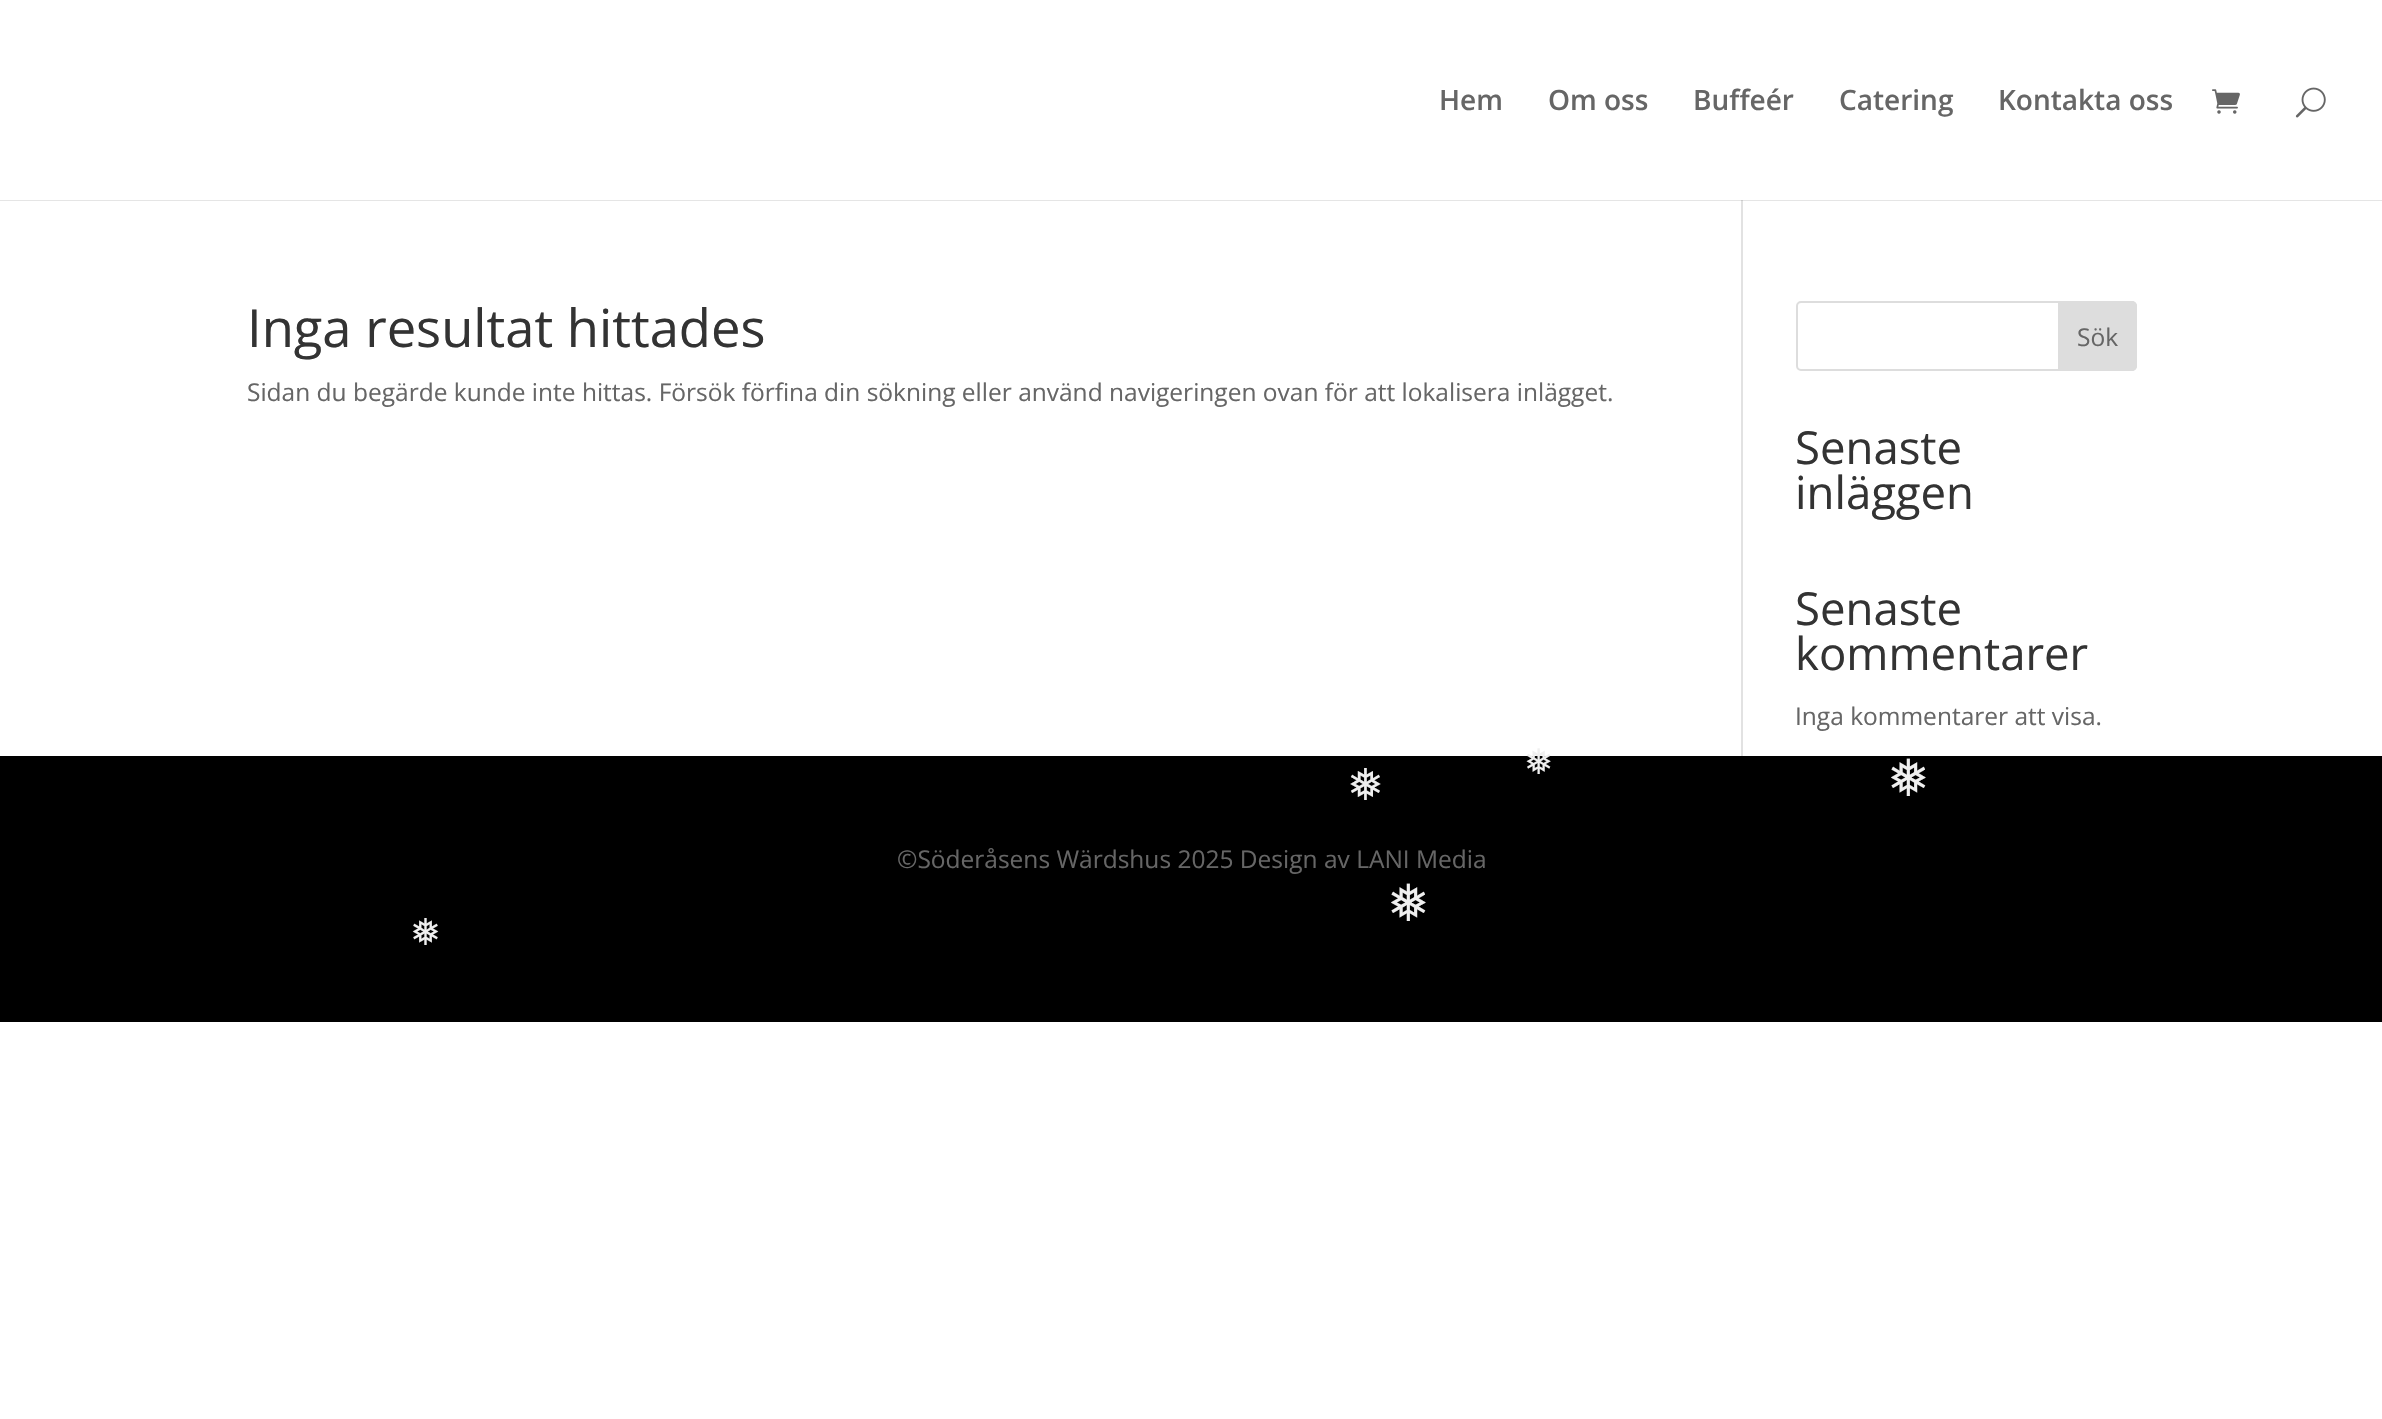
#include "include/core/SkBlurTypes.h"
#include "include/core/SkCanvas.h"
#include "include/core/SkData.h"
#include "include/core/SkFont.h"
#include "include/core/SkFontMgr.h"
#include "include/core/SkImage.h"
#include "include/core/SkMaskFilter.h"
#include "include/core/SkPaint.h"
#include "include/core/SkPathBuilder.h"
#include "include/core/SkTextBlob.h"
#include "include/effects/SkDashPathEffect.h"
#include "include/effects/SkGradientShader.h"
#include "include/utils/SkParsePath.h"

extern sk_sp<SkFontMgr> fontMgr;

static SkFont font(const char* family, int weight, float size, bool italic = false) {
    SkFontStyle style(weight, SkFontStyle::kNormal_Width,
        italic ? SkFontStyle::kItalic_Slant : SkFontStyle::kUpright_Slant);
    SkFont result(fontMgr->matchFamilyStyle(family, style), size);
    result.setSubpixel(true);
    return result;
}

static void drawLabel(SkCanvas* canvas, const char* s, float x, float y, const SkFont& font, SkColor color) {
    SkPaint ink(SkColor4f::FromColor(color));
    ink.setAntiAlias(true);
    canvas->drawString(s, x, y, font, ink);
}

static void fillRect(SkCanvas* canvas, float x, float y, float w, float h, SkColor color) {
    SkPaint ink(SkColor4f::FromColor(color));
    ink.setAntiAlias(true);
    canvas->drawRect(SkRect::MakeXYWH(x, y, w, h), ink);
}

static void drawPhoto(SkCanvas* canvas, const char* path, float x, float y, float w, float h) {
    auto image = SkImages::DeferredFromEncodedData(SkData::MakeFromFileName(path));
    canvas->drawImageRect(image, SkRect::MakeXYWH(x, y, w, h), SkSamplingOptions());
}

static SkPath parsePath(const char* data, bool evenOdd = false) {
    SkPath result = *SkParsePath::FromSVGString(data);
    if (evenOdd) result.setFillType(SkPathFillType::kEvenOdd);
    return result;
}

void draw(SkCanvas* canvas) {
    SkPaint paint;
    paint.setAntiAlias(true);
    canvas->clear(0xFFFFFFFF);
    fillRect(canvas, 1741, 200, 2, 556, 0xFFE2E2E2);
    paint.setColor(0x1A000000);
    canvas->drawPath(parsePath("M0 200V201H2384V2V200Z"), paint);
    SkFont font1 = font("Open Sans", 600, 28);
    drawLabel(canvas, "Hem", 1439, 110, font1, 0xFF666666);
    drawLabel(canvas, "Om oss", 1548, 110, font1, 0xFF666666);
    drawLabel(canvas, "Buffeér", 1693, 110, font1, 0xFF666666);
    drawLabel(canvas, "Catering", 1839, 110, font1, 0xFF666666);
    drawLabel(canvas, "Kontakta oss", 1998, 110, font1, 0xFF666666);
    drawPhoto(canvas, "assets/img1.png", 2212, 89, 28, 25);
    drawPhoto(canvas, "assets/img2.png", 2295, 87, 31, 31);
    SkFont font2 = font("Open Sans", 400, 52.5f);
    drawLabel(canvas, "Inga resultat hittades", 247, 347, font2, 0xFF333333);
    SkFont font3 = font("Open Sans", 400, 24.5f);
    drawLabel(canvas, "Sidan du begärde kunde inte hittas. Försök förfina din sökning eller använd navigeringen ovan för att lokalisera inlägget.", 247, 401, font3, 0xFF666666);
    paint.setStroke(true);
    paint.setStrokeWidth(2);
    paint.setColor(0xFFDDDDDD);
    canvas->drawRoundRect(SkRect::MakeXYWH(1797, 302, 339, 68), 4, 4, paint);
    paint.setStroke(false);
    canvas->drawPath(parsePath("M2059 302H2132C2134 302 2136 304 2136 306V366C2136 368 2134 370 2132 370H2059Z"), paint);
    paint.setStroke(true);
    canvas->drawPath(parsePath("M2059 302H2132C2134 302 2136 304 2136 306V366C2136 368 2134 370 2132 370H2059Z"), paint);
    drawLabel(canvas, "Sök", 2077, 346, font3, 0xFF666666);
    SkFont font4 = font("Open Sans", 400, 45.5f);
    drawLabel(canvas, "Senaste", 1795, 464, font4, 0xFF333333);
    drawLabel(canvas, "inläggen", 1795, 509, font4, 0xFF333333);
    drawLabel(canvas, "Senaste", 1795, 625, font4, 0xFF333333);
    drawLabel(canvas, "kommentarer", 1795, 670, font4, 0xFF333333);
    drawLabel(canvas, "Inga kommentarer att visa.", 1795, 725, font3, 0xFF666666);
    fillRect(canvas, 0, 756, 2382, 266, 0xFF000000);
    drawLabel(canvas, "©Söderåsens Wärdshus 2025 Design av LANI Media", 897, 868, font3, 0xFF666666);
    SkFont font5 = font("DejaVu Sans", 400, 44);
    drawLabel(canvas, "❅", 1347, 800, font5, 0xFFEFEFEF);
    SkFont font6 = font("DejaVu Sans", 400, 35);
    drawLabel(canvas, "❅", 1524, 774, font6, 0xFFEFEFEF);
    SkFont font7 = font("DejaVu Sans", 400, 51);
    drawLabel(canvas, "❅", 1887, 796, font7, 0xFFEFEFEF);
    drawLabel(canvas, "❅", 1387, 921, font7, 0xFFEFEFEF);
    SkFont font8 = font("DejaVu Sans", 400, 37);
    drawLabel(canvas, "❅", 410, 945, font8, 0xFFEFEFEF);
}
